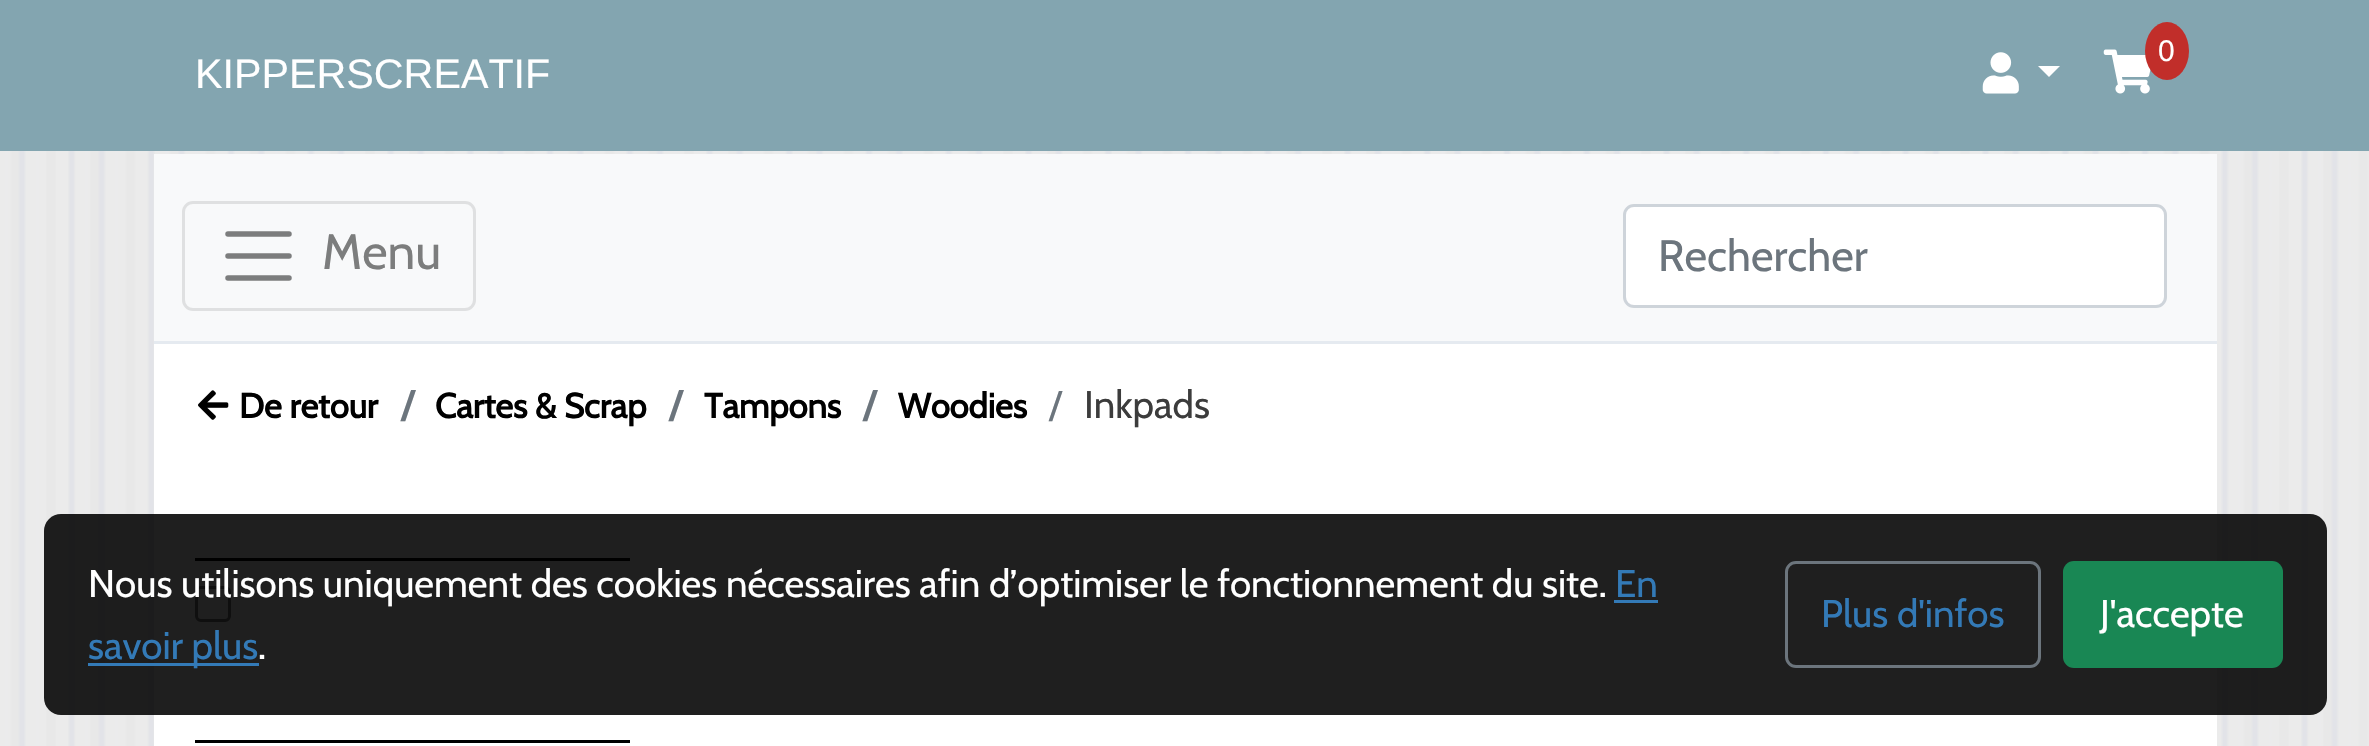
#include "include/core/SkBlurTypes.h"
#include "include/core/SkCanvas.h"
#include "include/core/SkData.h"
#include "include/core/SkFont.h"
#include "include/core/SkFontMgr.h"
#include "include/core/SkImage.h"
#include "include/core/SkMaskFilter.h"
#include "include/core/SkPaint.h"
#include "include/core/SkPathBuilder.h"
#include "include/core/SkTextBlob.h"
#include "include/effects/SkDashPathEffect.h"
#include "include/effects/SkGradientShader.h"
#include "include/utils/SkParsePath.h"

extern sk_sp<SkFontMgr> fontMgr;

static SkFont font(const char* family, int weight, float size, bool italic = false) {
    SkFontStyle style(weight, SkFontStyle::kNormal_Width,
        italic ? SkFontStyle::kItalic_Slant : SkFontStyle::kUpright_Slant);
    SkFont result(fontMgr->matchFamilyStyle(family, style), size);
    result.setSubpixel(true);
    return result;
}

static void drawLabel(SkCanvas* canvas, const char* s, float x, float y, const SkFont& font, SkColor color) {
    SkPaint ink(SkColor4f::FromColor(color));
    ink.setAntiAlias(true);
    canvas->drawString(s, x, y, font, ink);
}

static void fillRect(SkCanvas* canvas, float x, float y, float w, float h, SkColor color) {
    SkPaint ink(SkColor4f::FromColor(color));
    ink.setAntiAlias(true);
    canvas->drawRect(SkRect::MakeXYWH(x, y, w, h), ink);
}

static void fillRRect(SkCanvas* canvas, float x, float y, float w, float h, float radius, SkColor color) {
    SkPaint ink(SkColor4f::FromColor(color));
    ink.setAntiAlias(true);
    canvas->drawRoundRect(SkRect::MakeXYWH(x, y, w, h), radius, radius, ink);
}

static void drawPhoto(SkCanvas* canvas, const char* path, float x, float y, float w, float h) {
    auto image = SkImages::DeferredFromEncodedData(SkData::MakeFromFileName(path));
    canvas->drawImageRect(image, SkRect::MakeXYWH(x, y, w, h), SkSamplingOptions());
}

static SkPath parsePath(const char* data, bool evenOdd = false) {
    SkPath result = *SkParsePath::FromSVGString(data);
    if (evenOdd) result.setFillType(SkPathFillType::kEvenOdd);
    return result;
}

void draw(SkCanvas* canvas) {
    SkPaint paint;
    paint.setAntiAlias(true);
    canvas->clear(0xFFFFFFFF);
    drawPhoto(canvas, "assets/img1.png", 0, 151, 2369, 595);
    fillRect(canvas, 0, 0, 2369, 151, 0xFF83A5B0);
    drawPhoto(canvas, "assets/img2.png", 1982, 52, 37, 42);
    paint.setColor(0xFFFFFFFF);
    canvas->drawPath(parsePath("M2038 66H2060L2049 77Z"), paint);
    drawPhoto(canvas, "assets/img3.png", 2103, 49, 48, 45);
    paint.setColor(0xFFC12E2A);
    canvas->drawOval(SkRect::MakeXYWH(2145, 22, 44, 58), paint);
    SkFont font1 = font("Liberation Sans", 400, 30);
    drawLabel(canvas, "0", 2158, 61, font1, 0xFFFFFFFF);
    SkFont font2 = font("Liberation Sans", 400, 41.25f);
    drawLabel(canvas, "KIPPERSCREATIF", 195, 88, font2, 0xFFFFFFFF);
    fillRect(canvas, 154, 341, 2063, 3, 0xFFE5EAF0);
    fillRect(canvas, 154, 154, 2063, 187, 0xFFF8F9FA);
    paint.setStroke(true);
    paint.setStrokeWidth(3);
    paint.setColor(0xFFDFE0E1);
    canvas->drawRoundRect(SkRect::MakeXYWH(183.5f, 202.5f, 291, 107), 9.5f, 9.5f, paint);
    paint.setStrokeWidth(5.5f);
    paint.setStrokeCap(SkPaint::kRound_Cap);
    paint.setColor(0xFF7C7D7D);
    canvas->drawPath(parsePath("M228 234H289M228 256H289M228 278H289"), paint);
    SkFont font3 = font("Cabin", 400, 49.5f);
    drawLabel(canvas, "Menu", 322, 269, font3, 0xFF7C7D7D);
    paint.setStroke(false);
    paint.setColor(0xFFFFFFFF);
    canvas->drawRoundRect(SkRect::MakeXYWH(1624.5f, 205.5f, 541, 101), 9.5f, 9.5f, paint);
    paint.setStroke(true);
    paint.setStrokeWidth(3);
    paint.setStrokeCap(SkPaint::kButt_Cap);
    paint.setColor(0xFFCED4DA);
    canvas->drawRoundRect(SkRect::MakeXYWH(1624.5f, 205.5f, 541, 101), 9.5f, 9.5f, paint);
    SkFont font4 = font("Cabin", 400, 44);
    drawLabel(canvas, "Rechercher", 1658, 271, font4, 0xFF6C757D);
    fillRect(canvas, 154, 344, 2063, 402, 0xFFFFFFFF);
    drawPhoto(canvas, "assets/img4.png", 198, 390, 31, 30);
    SkFont font5 = font("Cabin", 700, 34.5f);
    drawLabel(canvas, "De retour", 239, 418, font5, 0xFF000000);
    SkFont font6 = font("Cabin", 700, 38.5f);
    drawLabel(canvas, "/", 401, 418, font6, 0xFF6C757D);
    drawLabel(canvas, "Cartes & Scrap", 435, 418, font5, 0xFF000000);
    drawLabel(canvas, "/", 669, 418, font6, 0xFF6C757D);
    drawLabel(canvas, "Tampons", 704, 418, font5, 0xFF000000);
    drawLabel(canvas, "/", 863, 418, font6, 0xFF6C757D);
    drawLabel(canvas, "Woodies", 898, 418, font5, 0xFF000000);
    SkFont font7 = font("Cabin", 400, 38.5f);
    drawLabel(canvas, "/", 1049, 418, font7, 0xFF6C757D);
    drawLabel(canvas, "Inkpads", 1084, 418, font7, 0xFF3C3C3C);
    fillRect(canvas, 195, 558, 435, 3, 0xFF000000);
    paint.setColor(0xFF767676);
    canvas->drawRoundRect(SkRect::MakeXYWH(196.5f, 587.5f, 33, 33), 4.5f, 4.5f, paint);
    fillRect(canvas, 195, 740, 435, 3, 0xFF000000);
    fillRRect(canvas, 44, 514, 2283, 201, 17, 0xE0000000);
    drawLabel(canvas, "Nous utilisons uniquement des cookies nécessaires afin d’optimiser le fonctionnement du site.", 88, 597, font7, 0xFFFFFFFF);
    drawLabel(canvas, "En", 1615, 597, font7, 0xFF337AB7);
    fillRect(canvas, 1614, 600, 44, 3, 0xFF337AB7);
    fillRect(canvas, 88, 663, 171, 3, 0xFF337AB7);
    drawLabel(canvas, "savoir plus", 88, 659, font7, 0xFF337AB7);
    drawLabel(canvas, ".", 258, 659, font7, 0xFFFFFFFF);
    paint.setColor(0xFF6C757D);
    canvas->drawRoundRect(SkRect::MakeXYWH(1786.5f, 562.5f, 253, 104), 9.5f, 9.5f, paint);
    drawLabel(canvas, "Plus d'infos", 1821, 627, font7, 0xFF337AB7);
    fillRRect(canvas, 2063, 561, 220, 107, 11, 0xFF198754);
    drawLabel(canvas, "J'accepte", 2100, 627, font7, 0xFFFFFFFF);
}
